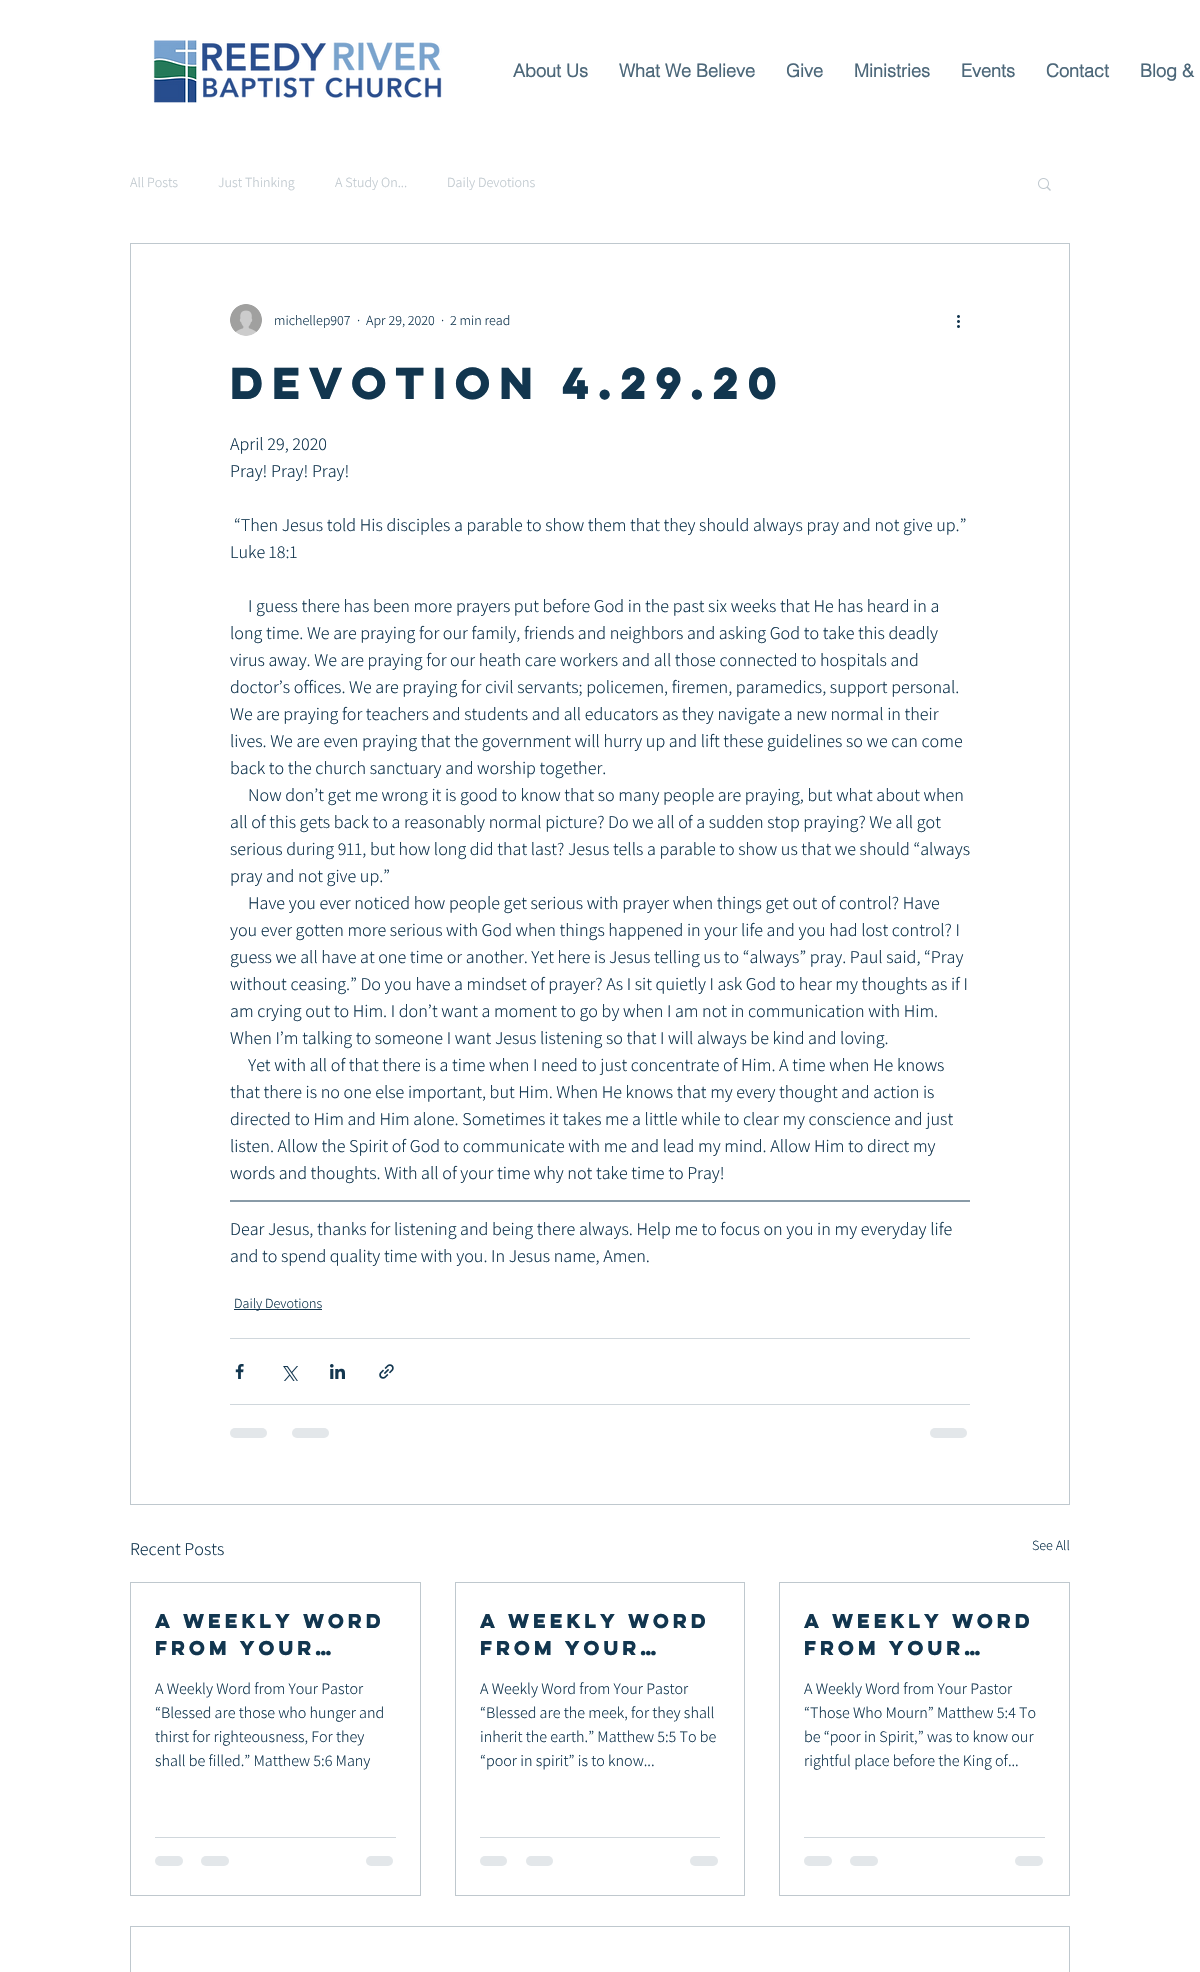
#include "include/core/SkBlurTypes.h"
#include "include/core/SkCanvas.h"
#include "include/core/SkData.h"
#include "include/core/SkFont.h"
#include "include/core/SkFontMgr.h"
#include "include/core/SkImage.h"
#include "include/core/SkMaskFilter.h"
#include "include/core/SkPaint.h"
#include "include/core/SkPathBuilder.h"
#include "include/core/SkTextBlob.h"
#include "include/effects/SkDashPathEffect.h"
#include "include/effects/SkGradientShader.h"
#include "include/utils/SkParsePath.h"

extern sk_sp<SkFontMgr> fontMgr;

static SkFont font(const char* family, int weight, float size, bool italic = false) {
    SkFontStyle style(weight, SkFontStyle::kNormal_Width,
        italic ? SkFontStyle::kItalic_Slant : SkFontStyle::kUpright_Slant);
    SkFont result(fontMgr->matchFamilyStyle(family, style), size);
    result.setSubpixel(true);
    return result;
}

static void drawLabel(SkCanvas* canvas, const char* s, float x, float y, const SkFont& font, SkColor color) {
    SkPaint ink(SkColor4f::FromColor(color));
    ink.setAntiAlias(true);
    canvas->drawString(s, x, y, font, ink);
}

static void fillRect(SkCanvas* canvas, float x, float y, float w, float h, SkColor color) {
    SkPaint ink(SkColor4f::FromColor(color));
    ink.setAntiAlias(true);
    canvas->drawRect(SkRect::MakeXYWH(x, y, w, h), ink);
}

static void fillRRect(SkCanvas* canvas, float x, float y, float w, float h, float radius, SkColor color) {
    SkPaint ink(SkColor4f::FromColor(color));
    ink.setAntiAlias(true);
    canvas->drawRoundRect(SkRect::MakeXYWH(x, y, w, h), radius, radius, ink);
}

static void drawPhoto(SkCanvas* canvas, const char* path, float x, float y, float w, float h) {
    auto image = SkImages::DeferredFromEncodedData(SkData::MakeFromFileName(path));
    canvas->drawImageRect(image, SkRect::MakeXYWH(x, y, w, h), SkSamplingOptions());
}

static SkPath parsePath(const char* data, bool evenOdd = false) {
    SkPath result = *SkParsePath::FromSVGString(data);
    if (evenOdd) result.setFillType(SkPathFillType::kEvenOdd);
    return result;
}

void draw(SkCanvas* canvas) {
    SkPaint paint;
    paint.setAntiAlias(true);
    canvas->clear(0xFFFFFFFF);
    drawPhoto(canvas, "assets/img1.png", 153, 40, 289, 63);
    SkFont font1 = font("helvetica", 700, 18);
    drawLabel(canvas, "About Us", 513, 77, font1, 0xFF4C6779);
    drawLabel(canvas, "What We Believe", 619, 77, font1, 0xFF4C6779);
    drawLabel(canvas, "Give", 786, 77, font1, 0xFF4C6779);
    drawLabel(canvas, "Ministries", 854, 77, font1, 0xFF4C6779);
    drawLabel(canvas, "Events", 961, 77, font1, 0xFF4C6779);
    drawLabel(canvas, "Contact", 1046, 77, font1, 0xFF4C6779);
    drawLabel(canvas, "Blog &", 1140, 77, font1, 0xFF4C6779);
    SkFont font2 = font("Assistant", 300, 14);
    drawLabel(canvas, "All Posts", 130, 187, font2, 0xFFBFC8CE);
    drawLabel(canvas, "Just Thinking", 218, 187, font2, 0xFFBFC8CE);
    drawLabel(canvas, "A Study On...", 335, 187, font2, 0xFFBFC8CE);
    drawLabel(canvas, "Daily Devotions", 447, 187, font2, 0xFFBFC8CE);
    drawPhoto(canvas, "assets/img2.png", 1038, 178, 13, 13);
    paint.setStroke(true);
    paint.setStrokeWidth(1);
    paint.setColor(0xFFBFC8CE);
    canvas->drawRect(SkRect::MakeXYWH(130.5f, 243.5f, 939, 1261), paint);
    drawPhoto(canvas, "assets/img3.png", 230, 304, 32, 32);
    drawLabel(canvas, "michellep907", 274, 325, font2, 0xFF12364F);
    drawLabel(canvas, "·", 357, 325, font2, 0xFF12364F);
    drawLabel(canvas, "Apr 29, 2020", 366, 325, font2, 0xFF12364F);
    drawLabel(canvas, "·", 441, 325, font2, 0xFF12364F);
    drawLabel(canvas, "2 min read", 450, 325, font2, 0xFF12364F);
    drawPhoto(canvas, "assets/img4.png", 957, 315, 3, 13);
    SkFont font3 = font("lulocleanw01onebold", 700, 40);
    drawLabel(canvas, "Devotion 4.29.20", 230, 399, font3, 0xFF12364F);
    SkFont font4 = font("Assistant", 300, 18);
    drawLabel(canvas, "April 29, 2020", 230, 450, font4, 0xFF12364F);
    drawLabel(canvas, "Pray! Pray! Pray!", 230, 477, font4, 0xFF12364F);
    drawLabel(canvas, "“Then Jesus told His disciples a parable to show them that they should always pray and not give up.”", 234, 531, font4, 0xFF12364F);
    drawLabel(canvas, "Luke 18:1", 230, 558, font4, 0xFF12364F);
    drawLabel(canvas, "I guess there has been more prayers put before God in the past six weeks that He has heard in a", 248, 612, font4, 0xFF12364F);
    drawLabel(canvas, "long time. We are praying for our family, friends and neighbors and asking God to take this deadly", 230, 639, font4, 0xFF12364F);
    drawLabel(canvas, "virus away. We are praying for our heath care workers and all those connected to hospitals and", 230, 666, font4, 0xFF12364F);
    drawLabel(canvas, "doctor’s offices. We are praying for civil servants; policemen, firemen, paramedics, support personal.", 230, 693, font4, 0xFF12364F);
    drawLabel(canvas, "We are praying for teachers and students and all educators as they navigate a new normal in their", 230, 720, font4, 0xFF12364F);
    drawLabel(canvas, "lives. We are even praying that the government will hurry up and lift these guidelines so we can come", 230, 747, font4, 0xFF12364F);
    drawLabel(canvas, "back to the church sanctuary and worship together.", 230, 774, font4, 0xFF12364F);
    drawLabel(canvas, "Now don’t get me wrong it is good to know that so many people are praying, but what about when", 248, 801, font4, 0xFF12364F);
    drawLabel(canvas, "all of this gets back to a reasonably normal picture? Do we all of a sudden stop praying? We all got", 230, 828, font4, 0xFF12364F);
    drawLabel(canvas, "serious during 911, but how long did that last? Jesus tells a parable to show us that we should “always", 230, 855, font4, 0xFF12364F);
    drawLabel(canvas, "pray and not give up.”", 230, 882, font4, 0xFF12364F);
    drawLabel(canvas, "Have you ever noticed how people get serious with prayer when things get out of control? Have", 248, 909, font4, 0xFF12364F);
    drawLabel(canvas, "you ever gotten more serious with God when things happened in your life and you had lost control? I", 230, 936, font4, 0xFF12364F);
    drawLabel(canvas, "guess we all have at one time or another. Yet here is Jesus telling us to “always” pray. Paul said, “Pray", 230, 963, font4, 0xFF12364F);
    drawLabel(canvas, "without ceasing.” Do you have a mindset of prayer? As I sit quietly I ask God to hear my thoughts as if I", 230, 990, font4, 0xFF12364F);
    drawLabel(canvas, "am crying out to Him. I don’t want a moment to go by when I am not in communication with Him.", 230, 1017, font4, 0xFF12364F);
    drawLabel(canvas, "When I’m talking to someone I want Jesus listening so that I will always be kind and loving.", 230, 1044, font4, 0xFF12364F);
    drawLabel(canvas, "Yet with all of that there is a time when I need to just concentrate of Him. A time when He knows", 248, 1071, font4, 0xFF12364F);
    drawLabel(canvas, "that there is no one else important, but Him. When He knows that my every thought and action is", 230, 1098, font4, 0xFF12364F);
    drawLabel(canvas, "directed to Him and Him alone. Sometimes it takes me a little while to clear my conscience and just", 230, 1125, font4, 0xFF12364F);
    drawLabel(canvas, "listen. Allow the Spirit of God to communicate with me and lead my mind. Allow Him to direct my", 230, 1152, font4, 0xFF12364F);
    drawLabel(canvas, "words and thoughts. With all of your time why not take time to Pray!", 230, 1179, font4, 0xFF12364F);
    paint.setColor(0xFF12364F);
    canvas->drawPath(parsePath("M230 1201H970"), paint);
    drawLabel(canvas, "Dear Jesus, thanks for listening and being there always. Help me to focus on you in my everyday life", 230, 1235, font4, 0xFF12364F);
    drawLabel(canvas, "and to spend quality time with you. In Jesus name, Amen.", 230, 1262, font4, 0xFF12364F);
    fillRect(canvas, 234, 1309, 88, 1, 0xFF12364F);
    drawLabel(canvas, "Daily Devotions", 234, 1308, font2, 0xFF12364F);
    fillRect(canvas, 230, 1338, 740, 1, 0xFFD0D7DC);
    drawPhoto(canvas, "assets/img5.png", 235, 1364, 9, 15);
    drawPhoto(canvas, "assets/img6.png", 283, 1366, 15, 15);
    drawPhoto(canvas, "assets/img7.png", 330, 1364, 15, 15);
    drawPhoto(canvas, "assets/img8.png", 379, 1364, 15, 15);
    fillRect(canvas, 230, 1404, 740, 1, 0xFFD0D7DC);
    fillRRect(canvas, 230, 1428, 37, 10, 5, 0xFFE3E7EA);
    fillRRect(canvas, 292, 1428, 37, 10, 5, 0xFFE3E7EA);
    fillRRect(canvas, 930, 1428, 37, 10, 5, 0xFFE3E7EA);
    drawLabel(canvas, "Recent Posts", 130, 1555, font4, 0xFF12364F);
    drawLabel(canvas, "See All", 1032, 1550, font2, 0xFF12364F);
    paint.setColor(0xFFBFC8CE);
    canvas->drawRect(SkRect::MakeXYWH(130.5f, 1582.5f, 290, 313), paint);
    SkFont font5 = font("lulocleanw01onebold", 700, 18);
    drawLabel(canvas, "A Weekly Word", 155, 1628, font5, 0xFF12364F);
    drawLabel(canvas, "from Your…", 155, 1655, font5, 0xFF12364F);
    SkFont font6 = font("Assistant", 300, 16);
    drawLabel(canvas, "A Weekly Word from Your Pastor", 155, 1694, font6, 0xFF12364F);
    drawLabel(canvas, "“Blessed are those who hunger and", 155, 1718, font6, 0xFF12364F);
    drawLabel(canvas, "thirst for righteousness, For they", 155, 1742, font6, 0xFF12364F);
    drawLabel(canvas, "shall be filled.” Matthew 5:6 Many", 155, 1766, font6, 0xFF12364F);
    fillRect(canvas, 155, 1837, 241, 1, 0xFFD0D7DC);
    fillRRect(canvas, 155, 1856, 28, 10, 5, 0xFFE3E7EA);
    fillRRect(canvas, 201, 1856, 28, 10, 5, 0xFFE3E7EA);
    fillRRect(canvas, 366, 1856, 27, 10, 5, 0xFFE3E7EA);
    canvas->drawRect(SkRect::MakeXYWH(455.5f, 1582.5f, 289, 313), paint);
    drawLabel(canvas, "A Weekly Word", 480, 1628, font5, 0xFF12364F);
    drawLabel(canvas, "from Your…", 480, 1655, font5, 0xFF12364F);
    drawLabel(canvas, "A Weekly Word from Your Pastor", 480, 1694, font6, 0xFF12364F);
    drawLabel(canvas, "“Blessed are the meek, for they shall", 480, 1718, font6, 0xFF12364F);
    drawLabel(canvas, "inherit the earth.” Matthew 5:5 To be", 480, 1742, font6, 0xFF12364F);
    drawLabel(canvas, "“poor in spirit” is to know...", 480, 1766, font6, 0xFF12364F);
    fillRect(canvas, 480, 1837, 240, 1, 0xFFD0D7DC);
    fillRRect(canvas, 480, 1856, 27, 10, 5, 0xFFE3E7EA);
    fillRRect(canvas, 526, 1856, 27, 10, 5, 0xFFE3E7EA);
    fillRRect(canvas, 690, 1856, 28, 10, 5, 0xFFE3E7EA);
    canvas->drawRect(SkRect::MakeXYWH(779.5f, 1582.5f, 290, 313), paint);
    drawLabel(canvas, "A Weekly Word", 804, 1628, font5, 0xFF12364F);
    drawLabel(canvas, "from Your…", 804, 1655, font5, 0xFF12364F);
    drawLabel(canvas, "A Weekly Word from Your Pastor", 804, 1694, font6, 0xFF12364F);
    drawLabel(canvas, "“Those Who Mourn” Matthew 5:4 To", 804, 1718, font6, 0xFF12364F);
    drawLabel(canvas, "be “poor in Spirit,” was to know our", 804, 1742, font6, 0xFF12364F);
    drawLabel(canvas, "rightful place before the King of...", 804, 1766, font6, 0xFF12364F);
    fillRect(canvas, 804, 1837, 241, 1, 0xFFD0D7DC);
    fillRRect(canvas, 804, 1856, 28, 10, 5, 0xFFE3E7EA);
    fillRRect(canvas, 850, 1856, 28, 10, 5, 0xFFE3E7EA);
    fillRRect(canvas, 1015, 1856, 28, 10, 5, 0xFFE3E7EA);
    canvas->drawRect(SkRect::MakeXYWH(130.5f, 1926.5f, 939, 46), paint);
}
